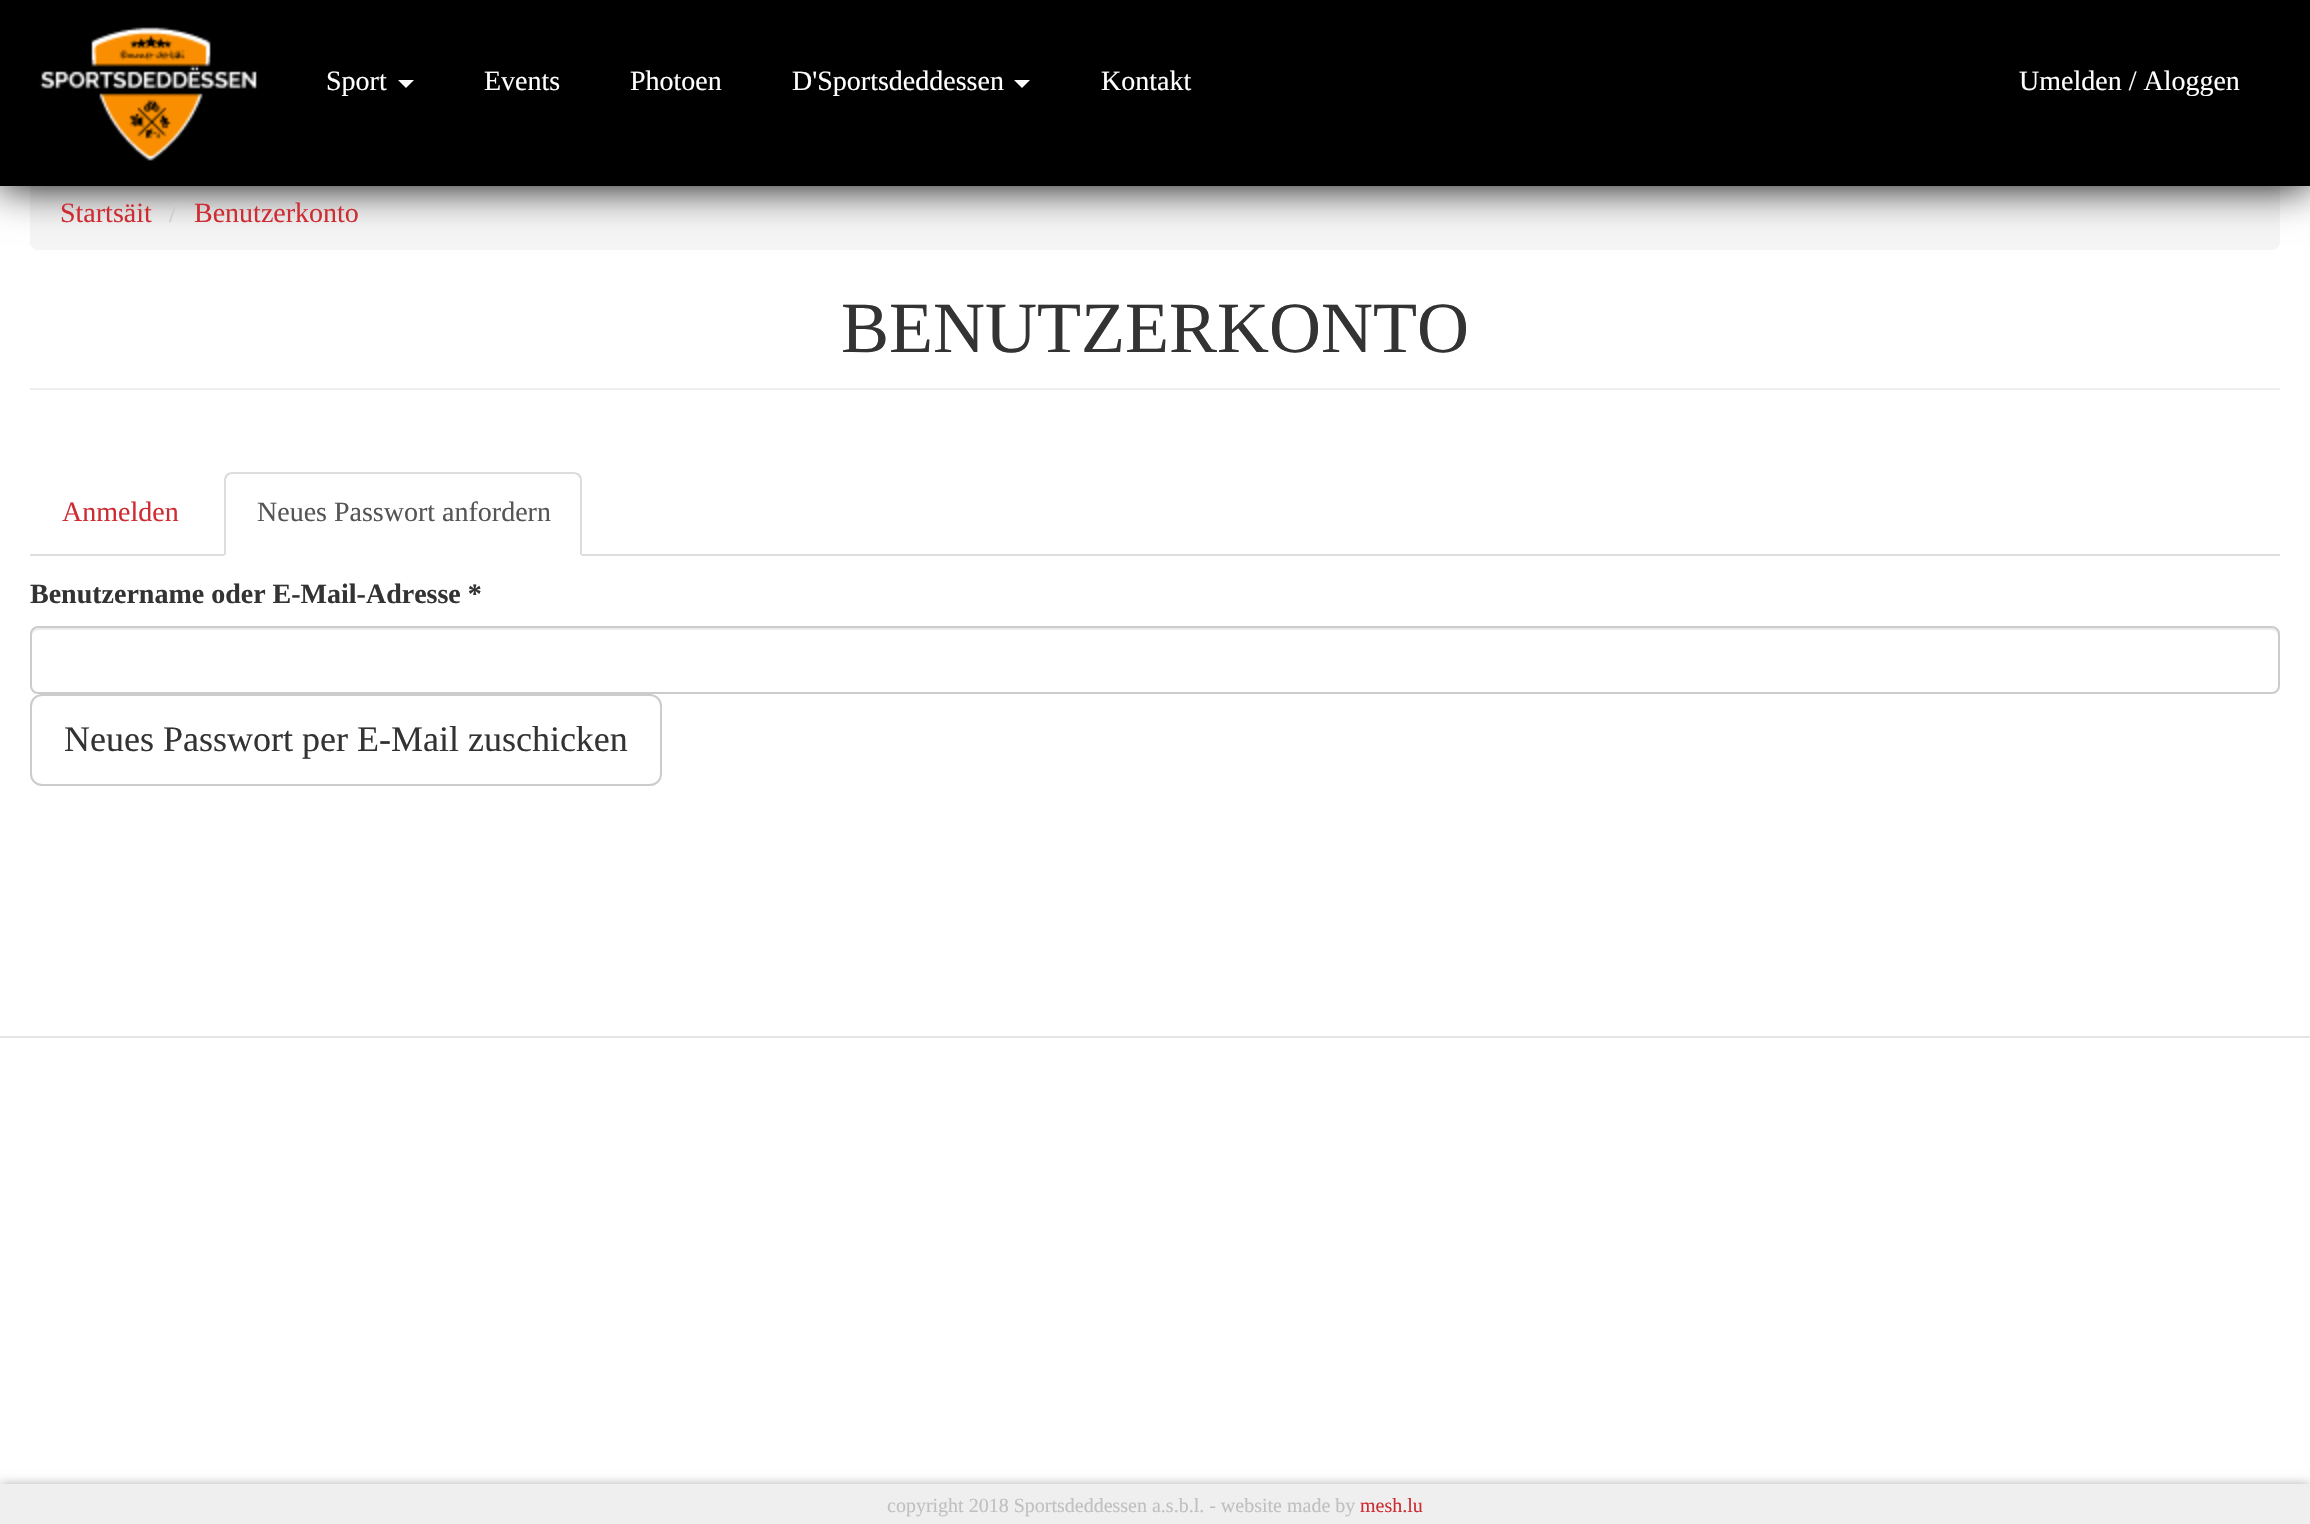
#include "include/core/SkBlurTypes.h"
#include "include/core/SkCanvas.h"
#include "include/core/SkData.h"
#include "include/core/SkFont.h"
#include "include/core/SkFontMgr.h"
#include "include/core/SkImage.h"
#include "include/core/SkMaskFilter.h"
#include "include/core/SkPaint.h"
#include "include/core/SkPathBuilder.h"
#include "include/core/SkTextBlob.h"
#include "include/effects/SkDashPathEffect.h"
#include "include/effects/SkGradientShader.h"
#include "include/utils/SkParsePath.h"

extern sk_sp<SkFontMgr> fontMgr;

static SkFont font(const char* family, int weight, float size, bool italic = false) {
    SkFontStyle style(weight, SkFontStyle::kNormal_Width,
        italic ? SkFontStyle::kItalic_Slant : SkFontStyle::kUpright_Slant);
    SkFont result(fontMgr->matchFamilyStyle(family, style), size);
    result.setSubpixel(true);
    return result;
}

static void drawLabel(SkCanvas* canvas, const char* s, float x, float y, const SkFont& font, SkColor color) {
    SkPaint ink(SkColor4f::FromColor(color));
    ink.setAntiAlias(true);
    canvas->drawString(s, x, y, font, ink);
}

static void fillRect(SkCanvas* canvas, float x, float y, float w, float h, SkColor color) {
    SkPaint ink(SkColor4f::FromColor(color));
    ink.setAntiAlias(true);
    canvas->drawRect(SkRect::MakeXYWH(x, y, w, h), ink);
}

static void fillRRect(SkCanvas* canvas, float x, float y, float w, float h, float radius, SkColor color) {
    SkPaint ink(SkColor4f::FromColor(color));
    ink.setAntiAlias(true);
    canvas->drawRoundRect(SkRect::MakeXYWH(x, y, w, h), radius, radius, ink);
}

static void drawPhoto(SkCanvas* canvas, const char* path, float x, float y, float w, float h) {
    auto image = SkImages::DeferredFromEncodedData(SkData::MakeFromFileName(path));
    canvas->drawImageRect(image, SkRect::MakeXYWH(x, y, w, h), SkSamplingOptions());
}

static SkPath parsePath(const char* data, bool evenOdd = false) {
    SkPath result = *SkParsePath::FromSVGString(data);
    if (evenOdd) result.setFillType(SkPathFillType::kEvenOdd);
    return result;
}

void draw(SkCanvas* canvas) {
    SkPaint paint;
    paint.setAntiAlias(true);
    canvas->clear(0xFFFFFFFF);
    fillRRect(canvas, 30, 178, 2250, 72, 8, 0xFFF5F5F5);
    paint.setColor(0xFF000000);
    paint.setMaskFilter(SkMaskFilter::MakeBlur(kNormal_SkBlurStyle, 20));
    canvas->drawRect(SkRect::MakeXYWH(0, 0, 2310, 186), paint);
    paint.setMaskFilter(nullptr);
    fillRect(canvas, 0, 0, 2310, 186, 0xFF000000);
    drawPhoto(canvas, "assets/img1.png", 39, 27, 218, 134);
    SkFont font1 = font("Liberation Serif", 400, 28);
    drawLabel(canvas, "Sport", 326, 90, font1, 0xFFFFFFFF);
    paint.setColor(0xFFFFFFFF);
    canvas->drawPath(parsePath("M398 80H414L406 88Z"), paint);
    drawLabel(canvas, "Events", 484, 90, font1, 0xFFFFFFFF);
    drawLabel(canvas, "Photoen", 630, 90, font1, 0xFFFFFFFF);
    drawLabel(canvas, "D'Sportsdeddessen", 792, 90, font1, 0xFFFFFFFF);
    canvas->drawPath(parsePath("M1014 80H1030L1022 88Z"), paint);
    drawLabel(canvas, "Kontakt", 1101, 90, font1, 0xFFFFFFFF);
    drawLabel(canvas, "Umelden / Aloggen", 2019, 90, font1, 0xFFFFFFFF);
    drawLabel(canvas, "Startsäit", 60, 222, font1, 0xFFCE2C33);
    drawLabel(canvas, "/", 169, 222, font1, 0xFFCCCCCC);
    drawLabel(canvas, "Benutzerkonto", 194, 222, font1, 0xFFCE2C33);
    fillRect(canvas, 30, 388, 2250, 2, 0xFFEEEEEE);
    SkFont font2 = font("Liberation Serif", 400, 72);
    drawLabel(canvas, "BENUTZERKONTO", 841, 352, font2, 0xFF333333);
    fillRect(canvas, 30, 554, 2250, 2, 0xFFDDDDDD);
    drawLabel(canvas, "Anmelden", 62, 521, font1, 0xFFCE2C33);
    canvas->drawPath(parsePath("M232 472H574C578.5 472 582 475.5 582 480V556H224V480C224 475.5 227.5 472 232 472Z"), paint);
    paint.setColor(0xFFDDDDDD);
    canvas->drawPath(parsePath("M232 472C230 472 228 473 226 474L228 476C229 475 230 474 232 474H574C576 474 577 475 578 476L580 474C578 473 576 472 574 472Z"), paint);
    canvas->drawPath(parsePath("M582 556V480C582 478 581 476 580 474L578 476L580 479V554Z"), paint);
    canvas->drawPath(parsePath("M224 556L226 554V479L228 476L226 474C225 476 224 478 224 480Z"), paint);
    drawLabel(canvas, "Neues Passwort anfordern", 257, 521, font1, 0xFF555555);
    SkFont font3 = font("Liberation Serif", 700, 28);
    drawLabel(canvas, "Benutzername oder E-Mail-Adresse *", 30, 603, font3, 0xFF333333);
    paint.setColor(0xFFECECEC);
    canvas->drawPath(parsePath("M38 630H2272C2275 630 2278 633 2278 636V634C2278 631 2275 628 2272 628H38C35 628 32 631 32 634V636C32 633 35 630 38 630Z"), paint);
    paint.setStroke(true);
    paint.setStrokeWidth(2);
    paint.setColor(0xFFCCCCCC);
    canvas->drawRoundRect(SkRect::MakeXYWH(31, 627, 2248, 66), 7, 7, paint);
    canvas->drawRoundRect(SkRect::MakeXYWH(31, 695, 630, 90), 11, 11, paint);
    SkFont font4 = font("Liberation Serif", 400, 36);
    drawLabel(canvas, "Neues Passwort per E-Mail zuschicken", 64, 751, font4, 0xFF333333);
    fillRect(canvas, 0, 1036, 2310, 2, 0xFFE5E5E5);
    paint.setStroke(false);
    paint.setColor(0x4D000000);
    paint.setMaskFilter(SkMaskFilter::MakeBlur(kNormal_SkBlurStyle, 5));
    canvas->drawRect(SkRect::MakeXYWH(0, 1484, 2310, 40), paint);
    paint.setMaskFilter(nullptr);
    fillRect(canvas, 0, 1484, 2310, 40, 0xFFEFEFEF);
    SkFont font5 = font("Liberation Serif", 400, 20);
    drawLabel(canvas, "copyright 2018 Sportsdeddessen a.s.b.l. - website made by", 887, 1512, font5, 0xFFC0C0C0);
    drawLabel(canvas, "mesh.lu", 1360, 1512, font5, 0xFFCE2C33);
}
